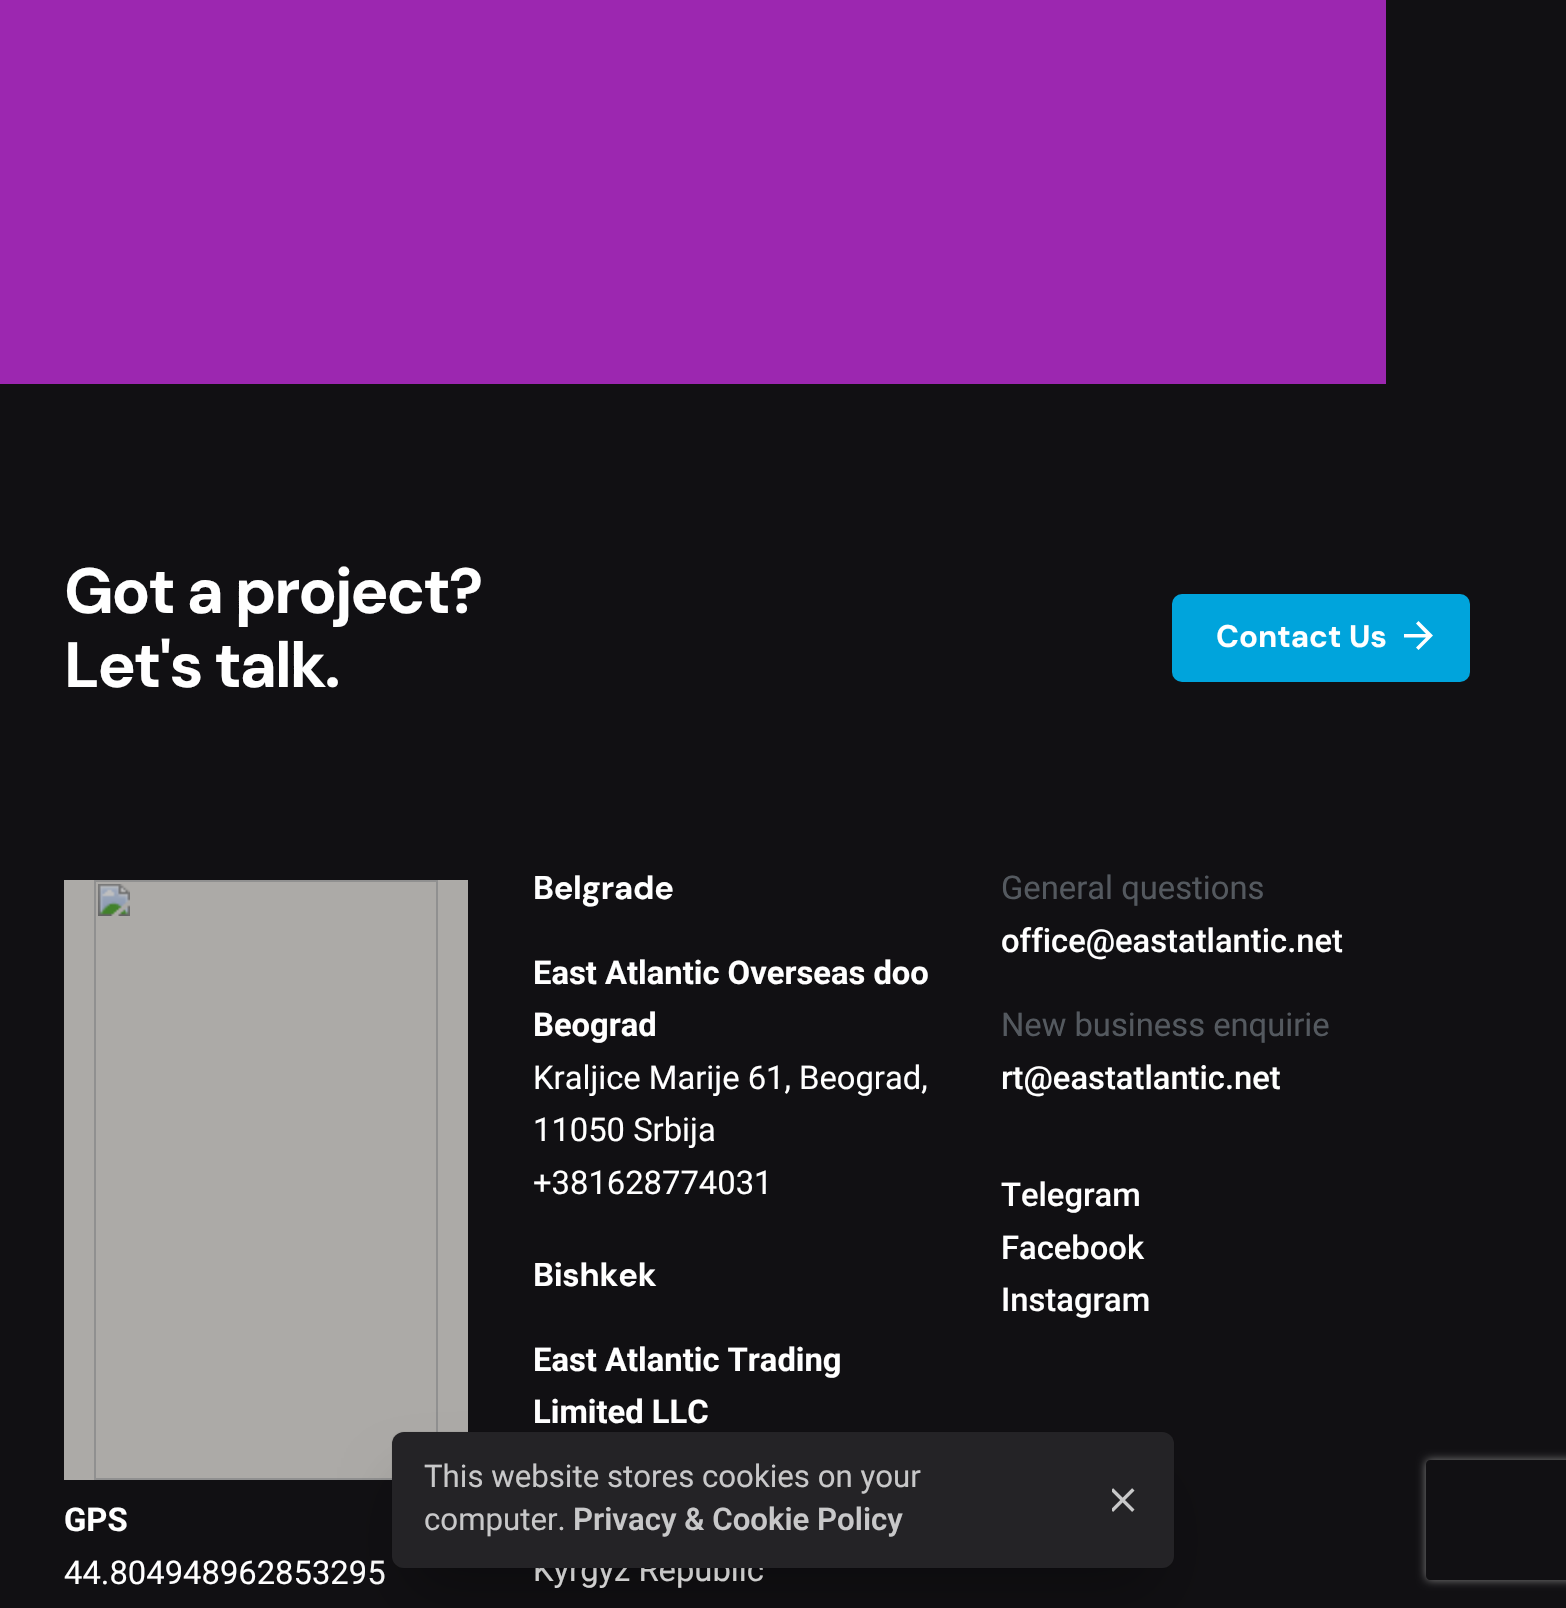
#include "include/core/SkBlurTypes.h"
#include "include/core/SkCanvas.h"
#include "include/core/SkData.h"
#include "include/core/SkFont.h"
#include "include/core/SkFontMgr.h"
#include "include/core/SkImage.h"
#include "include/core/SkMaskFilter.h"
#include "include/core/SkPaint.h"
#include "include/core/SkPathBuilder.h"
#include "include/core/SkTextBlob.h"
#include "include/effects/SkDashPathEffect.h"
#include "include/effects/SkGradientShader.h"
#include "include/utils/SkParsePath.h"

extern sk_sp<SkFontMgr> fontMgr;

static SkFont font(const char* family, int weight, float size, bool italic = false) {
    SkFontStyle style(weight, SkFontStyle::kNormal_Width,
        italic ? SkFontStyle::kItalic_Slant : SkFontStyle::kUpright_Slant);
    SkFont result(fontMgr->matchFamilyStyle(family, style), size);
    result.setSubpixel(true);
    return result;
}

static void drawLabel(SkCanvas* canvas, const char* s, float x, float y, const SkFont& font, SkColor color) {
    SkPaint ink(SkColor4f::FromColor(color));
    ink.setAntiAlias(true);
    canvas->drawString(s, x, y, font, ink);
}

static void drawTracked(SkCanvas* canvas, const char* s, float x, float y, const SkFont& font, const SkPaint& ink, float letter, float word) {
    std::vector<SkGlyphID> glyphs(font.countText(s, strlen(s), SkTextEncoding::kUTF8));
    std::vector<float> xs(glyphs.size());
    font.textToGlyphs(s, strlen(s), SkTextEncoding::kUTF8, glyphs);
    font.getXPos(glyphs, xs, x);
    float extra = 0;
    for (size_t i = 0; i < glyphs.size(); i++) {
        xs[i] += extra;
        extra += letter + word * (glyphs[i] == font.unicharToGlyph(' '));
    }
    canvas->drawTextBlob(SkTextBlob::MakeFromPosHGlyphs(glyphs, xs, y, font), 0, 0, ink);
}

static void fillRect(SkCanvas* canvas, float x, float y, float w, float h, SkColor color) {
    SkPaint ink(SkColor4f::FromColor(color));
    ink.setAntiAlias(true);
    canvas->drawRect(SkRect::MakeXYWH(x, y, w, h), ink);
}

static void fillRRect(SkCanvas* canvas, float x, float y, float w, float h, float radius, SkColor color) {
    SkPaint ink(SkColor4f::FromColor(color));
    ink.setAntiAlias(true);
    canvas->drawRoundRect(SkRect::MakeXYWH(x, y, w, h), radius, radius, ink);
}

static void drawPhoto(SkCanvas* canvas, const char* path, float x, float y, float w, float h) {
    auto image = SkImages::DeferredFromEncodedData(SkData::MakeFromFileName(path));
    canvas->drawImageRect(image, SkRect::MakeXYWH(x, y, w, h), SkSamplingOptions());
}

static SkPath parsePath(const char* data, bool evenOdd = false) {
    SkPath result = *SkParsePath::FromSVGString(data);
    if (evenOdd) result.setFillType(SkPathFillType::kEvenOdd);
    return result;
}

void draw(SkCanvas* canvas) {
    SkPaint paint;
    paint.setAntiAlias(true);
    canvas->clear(0xFF111013);
    fillRect(canvas, 0, 0, 1386, 384, 0xFF9C27B0);
    SkFont font1 = font("DM Sans", 700, 64);
    paint.setColor(0xFFFFFFFF);
    drawTracked(canvas, "Got a project?", 64, 613, font1, paint, -2.25f, 0);
    drawTracked(canvas, "Let's talk.", 64, 687, font1, paint, -2.25f, 0);
    fillRRect(canvas, 1172, 594, 298, 88, 10, 0xFF00A4DC);
    SkFont font2 = font("DM Sans", 700, 31.2f);
    drawLabel(canvas, "Contact Us", 1216, 647, font2, 0xFFFFFFFF);
    canvas->drawPath(parsePath("M1404 637.5V634H1426L1416 623.5L1418.5 621L1433 635.5L1418.5 650L1416 647.5L1426 637.5Z"), paint);
    drawPhoto(canvas, "assets/img1.png", 64, 880, 404, 600);
    SkFont font3 = font("Roboto", 700, 32.75f);
    drawLabel(canvas, "GPS", 64, 1531, font3, 0xFFFFFFFF);
    SkFont font4 = font("Roboto", 400, 32.75f);
    drawLabel(canvas, "44.804948962853295", 64, 1584, font4, 0xFFFFFFFF);
    SkFont font5 = font("DM Sans", 700, 32.75f);
    drawTracked(canvas, "Belgrade", 533, 899, font5, paint, -0.25f, 0);
    drawLabel(canvas, "East Atlantic Overseas doo", 533, 984, font3, 0xFFFFFFFF);
    drawLabel(canvas, "Beograd", 533, 1036, font3, 0xFFFFFFFF);
    drawLabel(canvas, "Kraljice Marije 61, Beograd,", 533, 1089, font4, 0xFFFFFFFF);
    drawLabel(canvas, "11050 Srbija", 533, 1141, font4, 0xFFFFFFFF);
    drawLabel(canvas, "+381628774031", 533, 1194, font4, 0xFFFFFFFF);
    drawTracked(canvas, "Bishkek", 533, 1286, font5, paint, -0.25f, 0);
    drawLabel(canvas, "East Atlantic Trading", 533, 1371, font3, 0xFFFFFFFF);
    drawLabel(canvas, "Limited LLC", 533, 1423, font3, 0xFFFFFFFF);
    drawLabel(canvas, "Kyrgyz Republic", 533, 1581, font4, 0xFFFFFFFF);
    drawLabel(canvas, "General questions", 1001, 899, font4, 0xFF54595F);
    SkFont font6 = font("Roboto", 500, 32.75f);
    drawLabel(canvas, "office@eastatlantic.net", 1001, 952, font6, 0xFFFFFFFF);
    drawLabel(canvas, "New business enquirie", 1001, 1036, font4, 0xFF54595F);
    drawLabel(canvas, "rt@eastatlantic.net", 1001, 1089, font6, 0xFFFFFFFF);
    drawLabel(canvas, "Telegram", 1001, 1206, font6, 0xFFFFFFFF);
    drawLabel(canvas, "Facebook", 1001, 1259, font6, 0xFFFFFFFF);
    drawLabel(canvas, "Instagram", 1001, 1311, font6, 0xFFFFFFFF);
    canvas->save();
    canvas->clipPath(parsePath("M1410 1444H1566V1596H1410ZM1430 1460H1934C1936 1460 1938 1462 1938 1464V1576C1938 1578 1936 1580 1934 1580H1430C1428 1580 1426 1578 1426 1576V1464C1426 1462 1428 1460 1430 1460Z", true), true);
    paint.setColor(0xFF808080);
    paint.setMaskFilter(SkMaskFilter::MakeBlur(kNormal_SkBlurStyle, 5));
    canvas->drawRoundRect(SkRect::MakeXYWH(1426, 1460, 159, 120), 4, 4, paint);
    paint.setMaskFilter(nullptr);
    canvas->restore();
    paint.setColor(0x26000000);
    paint.setMaskFilter(SkMaskFilter::MakeBlur(kNormal_SkBlurStyle, 1));
    canvas->drawRoundRect(SkRect::MakeXYWH(392, 1432, 782, 136), 12, 12, paint);
    paint.setMaskFilter(nullptr);
    paint.setColor(0x4D000000);
    paint.setMaskFilter(SkMaskFilter::MakeBlur(kNormal_SkBlurStyle, 32));
    canvas->drawRect(SkRect::MakeXYWH(408, 1488, 750, 104), paint);
    paint.setMaskFilter(nullptr);
    fillRRect(canvas, 392, 1432, 782, 136, 12, 0xFF242326);
    SkFont font7 = font("Roboto", 400, 31.2f);
    drawLabel(canvas, "This website stores cookies on your", 424, 1487, font7, 0xFFC8C8C9);
    drawLabel(canvas, "computer.", 424, 1530, font7, 0xFFC8C8C9);
    SkFont font8 = font("Roboto", 600, 31.2f);
    drawLabel(canvas, "Privacy & Cookie Policy", 573, 1530, font8, 0xFFC8C8C9);
    drawPhoto(canvas, "assets/img2.png", 1112, 1488, 23, 24);
}
